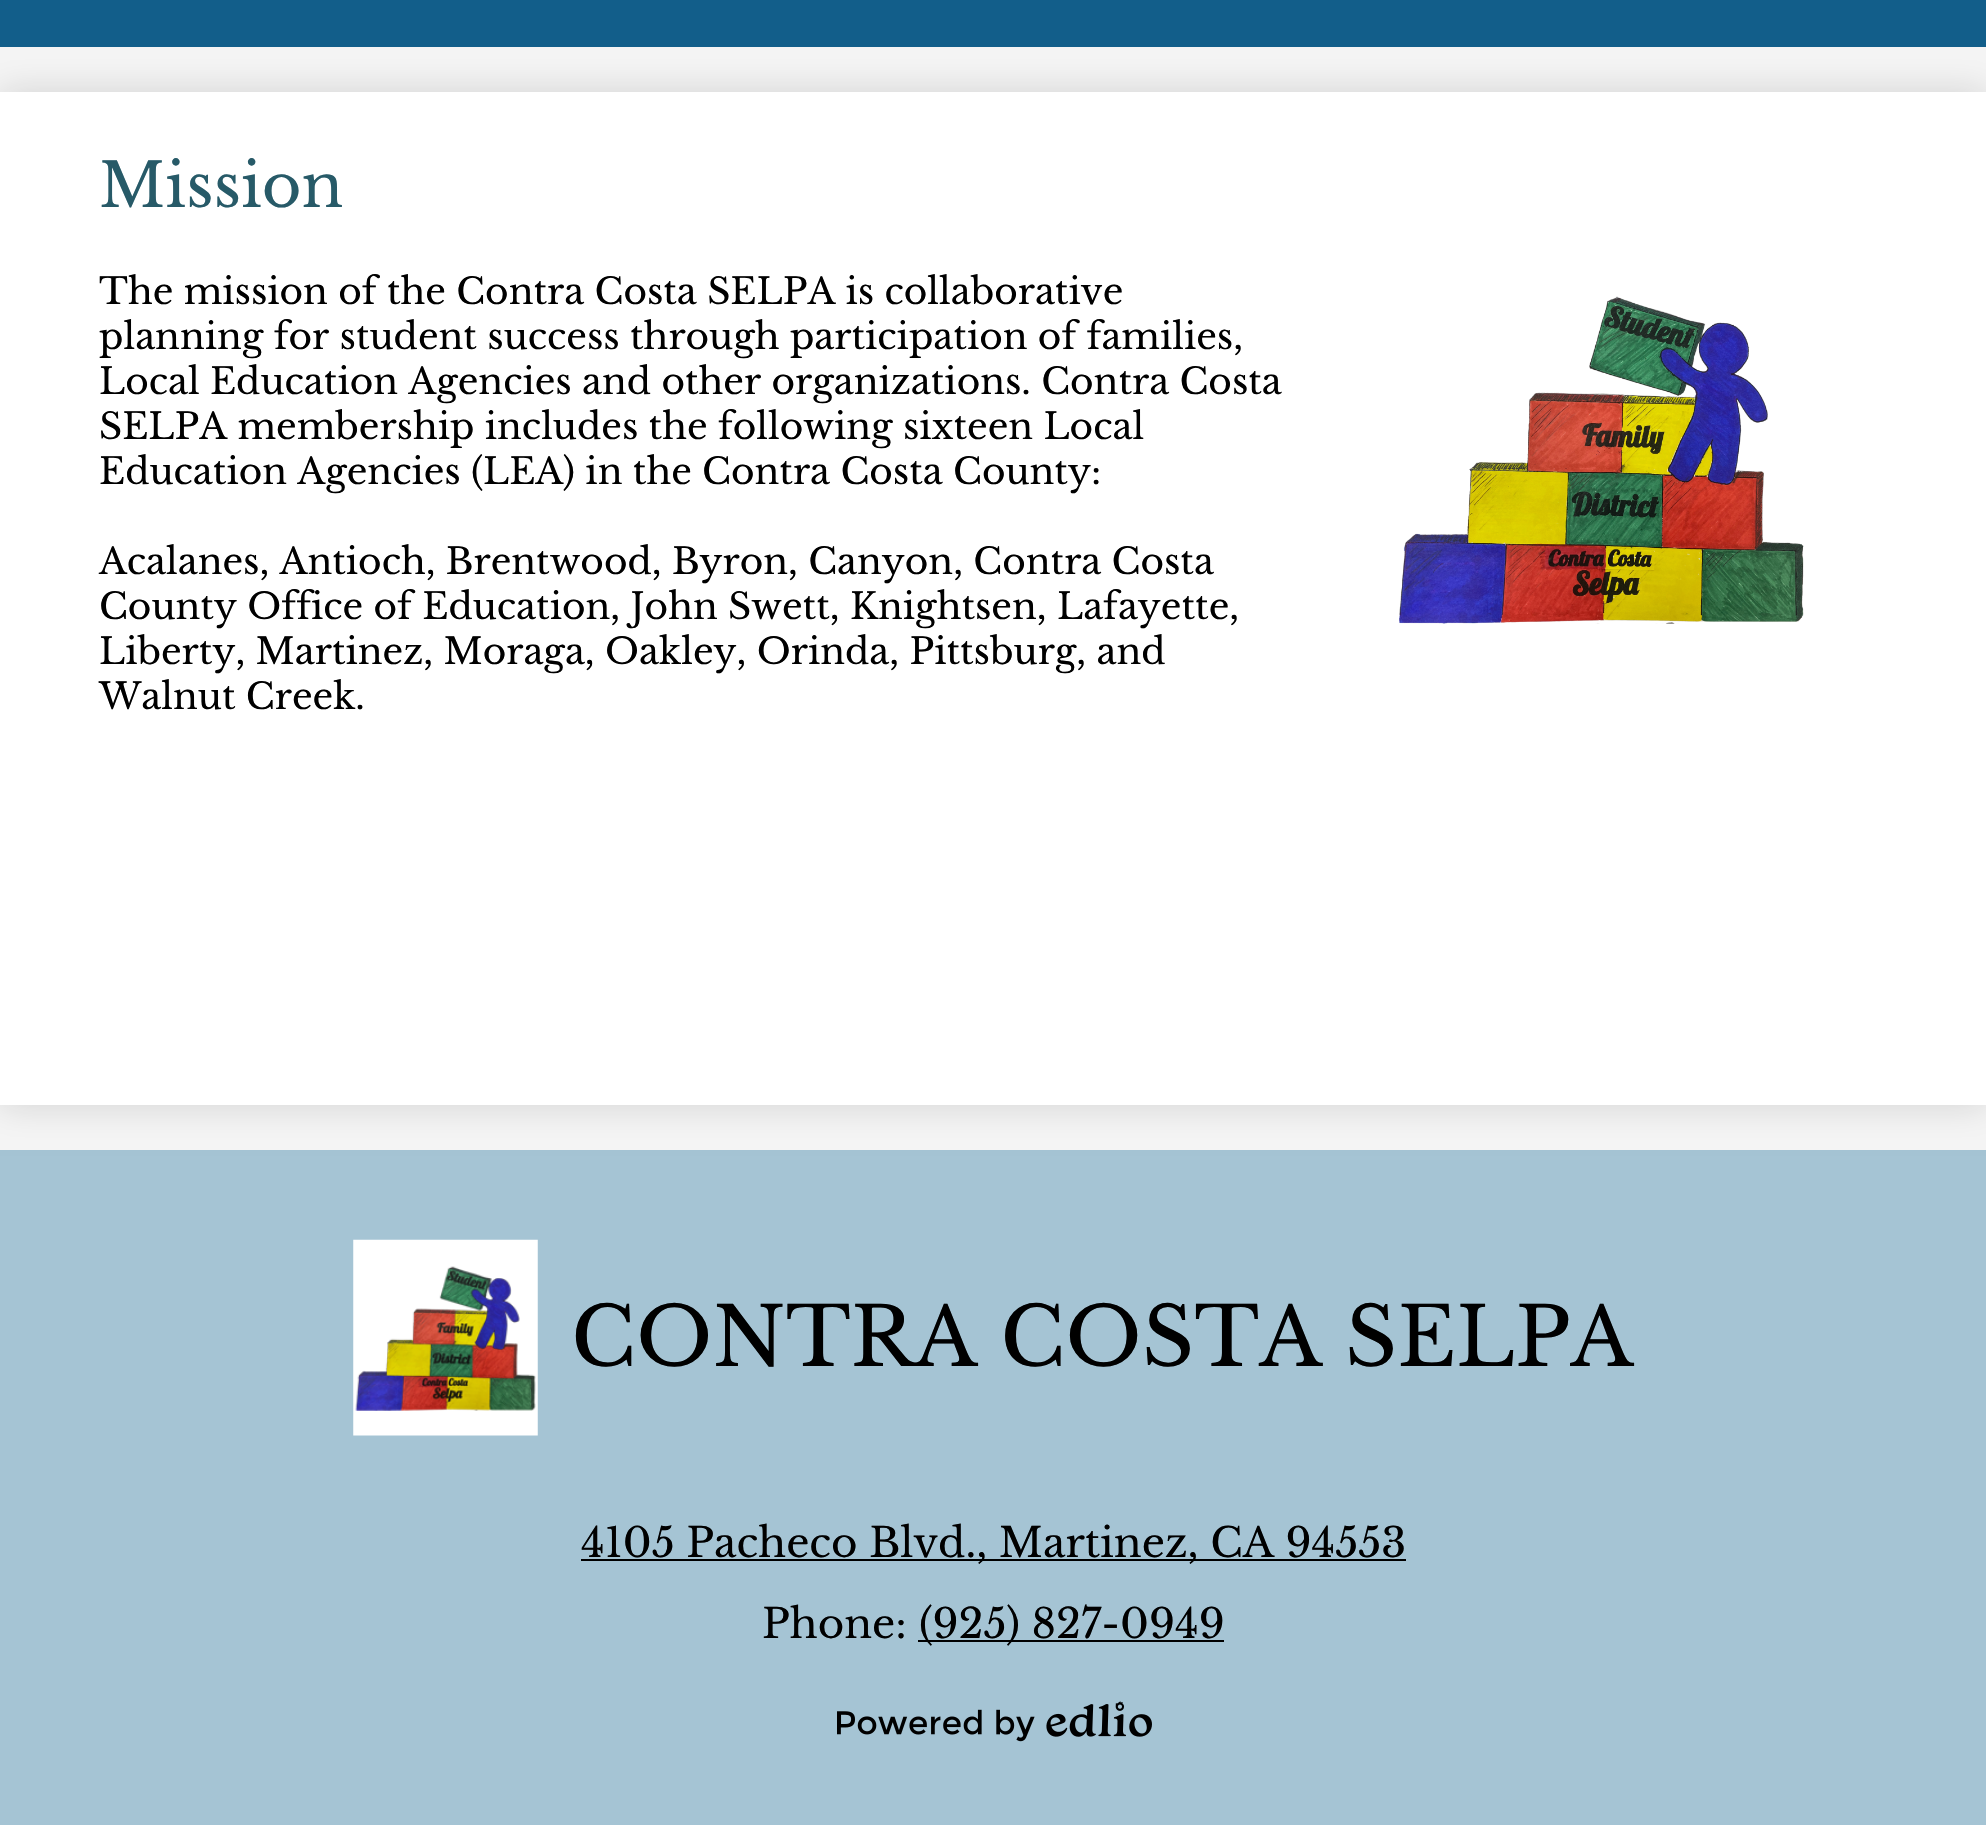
#include "include/core/SkBlurTypes.h"
#include "include/core/SkCanvas.h"
#include "include/core/SkData.h"
#include "include/core/SkFont.h"
#include "include/core/SkFontMgr.h"
#include "include/core/SkImage.h"
#include "include/core/SkMaskFilter.h"
#include "include/core/SkPaint.h"
#include "include/core/SkPathBuilder.h"
#include "include/core/SkTextBlob.h"
#include "include/effects/SkDashPathEffect.h"
#include "include/effects/SkGradientShader.h"
#include "include/utils/SkParsePath.h"

extern sk_sp<SkFontMgr> fontMgr;

static SkFont font(const char* family, int weight, float size, bool italic = false) {
    SkFontStyle style(weight, SkFontStyle::kNormal_Width,
        italic ? SkFontStyle::kItalic_Slant : SkFontStyle::kUpright_Slant);
    SkFont result(fontMgr->matchFamilyStyle(family, style), size);
    result.setSubpixel(true);
    return result;
}

static void drawLabel(SkCanvas* canvas, const char* s, float x, float y, const SkFont& font, SkColor color) {
    SkPaint ink(SkColor4f::FromColor(color));
    ink.setAntiAlias(true);
    canvas->drawString(s, x, y, font, ink);
}

static void fillRect(SkCanvas* canvas, float x, float y, float w, float h, SkColor color) {
    SkPaint ink(SkColor4f::FromColor(color));
    ink.setAntiAlias(true);
    canvas->drawRect(SkRect::MakeXYWH(x, y, w, h), ink);
}

static void drawPhoto(SkCanvas* canvas, const char* path, float x, float y, float w, float h) {
    auto image = SkImages::DeferredFromEncodedData(SkData::MakeFromFileName(path));
    canvas->drawImageRect(image, SkRect::MakeXYWH(x, y, w, h), SkSamplingOptions());
}

void draw(SkCanvas* canvas) {
    SkPaint paint;
    paint.setAntiAlias(true);
    canvas->clear(0xFFF5F5F5);
    fillRect(canvas, 0, 1150, 1986, 675, 0xFFA5C4D4);
    paint.setColor(0x26000000);
    paint.setMaskFilter(SkMaskFilter::MakeBlur(kNormal_SkBlurStyle, 17));
    canvas->drawRect(SkRect::MakeXYWH(0, 92, 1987, 1013), paint);
    paint.setMaskFilter(nullptr);
    fillRect(canvas, 0, 0, 1986, 47, 0xFF125E8A);
    fillRect(canvas, 0, 92, 1986, 1013, 0xFFFFFFFF);
    SkFont font1 = font("Libre Baskerville", 400, 60.75f);
    drawLabel(canvas, "Mission", 99, 207, font1, 0xFF275A68);
    SkFont font2 = font("Libre Baskerville", 400, 36);
    drawLabel(canvas, "The mission of the Contra Costa SELPA is collaborative", 99, 304, font2, 0xFF000000);
    drawLabel(canvas, "planning for student success through participation of families,", 99, 349, font2, 0xFF000000);
    drawLabel(canvas, "Local Education Agencies and other organizations. Contra Costa", 99, 394, font2, 0xFF000000);
    drawLabel(canvas, "SELPA membership includes the following sixteen Local", 99, 439, font2, 0xFF000000);
    drawLabel(canvas, "Education Agencies (LEA) in the Contra Costa County:", 99, 484, font2, 0xFF000000);
    drawLabel(canvas, "Acalanes, Antioch, Brentwood, Byron, Canyon, Contra Costa", 99, 574, font2, 0xFF000000);
    drawLabel(canvas, "County Office of Education, John Swett, Knightsen, Lafayette,", 99, 619, font2, 0xFF000000);
    drawLabel(canvas, "Liberty, Martinez, Moraga, Oakley, Orinda, Pittsburg, and", 99, 664, font2, 0xFF000000);
    drawLabel(canvas, "Walnut Creek.", 99, 709, font2, 0xFF000000);
    drawPhoto(canvas, "assets/img1.png", 1399, 296, 405, 328);
    drawPhoto(canvas, "assets/img2.png", 353, 1239, 185, 197);
    SkFont font3 = font("Libre Baskerville", 400, 81);
    drawLabel(canvas, "CONTRA COSTA SELPA", 571, 1366, font3, 0xFF000000);
    fillRect(canvas, 581, 1559, 825, 2, 0xFF000000);
    SkFont font4 = font("Libre Baskerville", 400, 40.5f);
    drawLabel(canvas, "4105 Pacheco Blvd., Martinez, CA 94553", 581, 1557, font4, 0xFF000000);
    drawLabel(canvas, "Phone:", 762, 1638, font4, 0xFF000000);
    fillRect(canvas, 918, 1640, 306, 2, 0xFF000000);
    drawLabel(canvas, "(925) 827-0949", 919, 1638, font4, 0xFF000000);
    drawPhoto(canvas, "assets/img3.png", 837, 1701, 315, 41);
}
